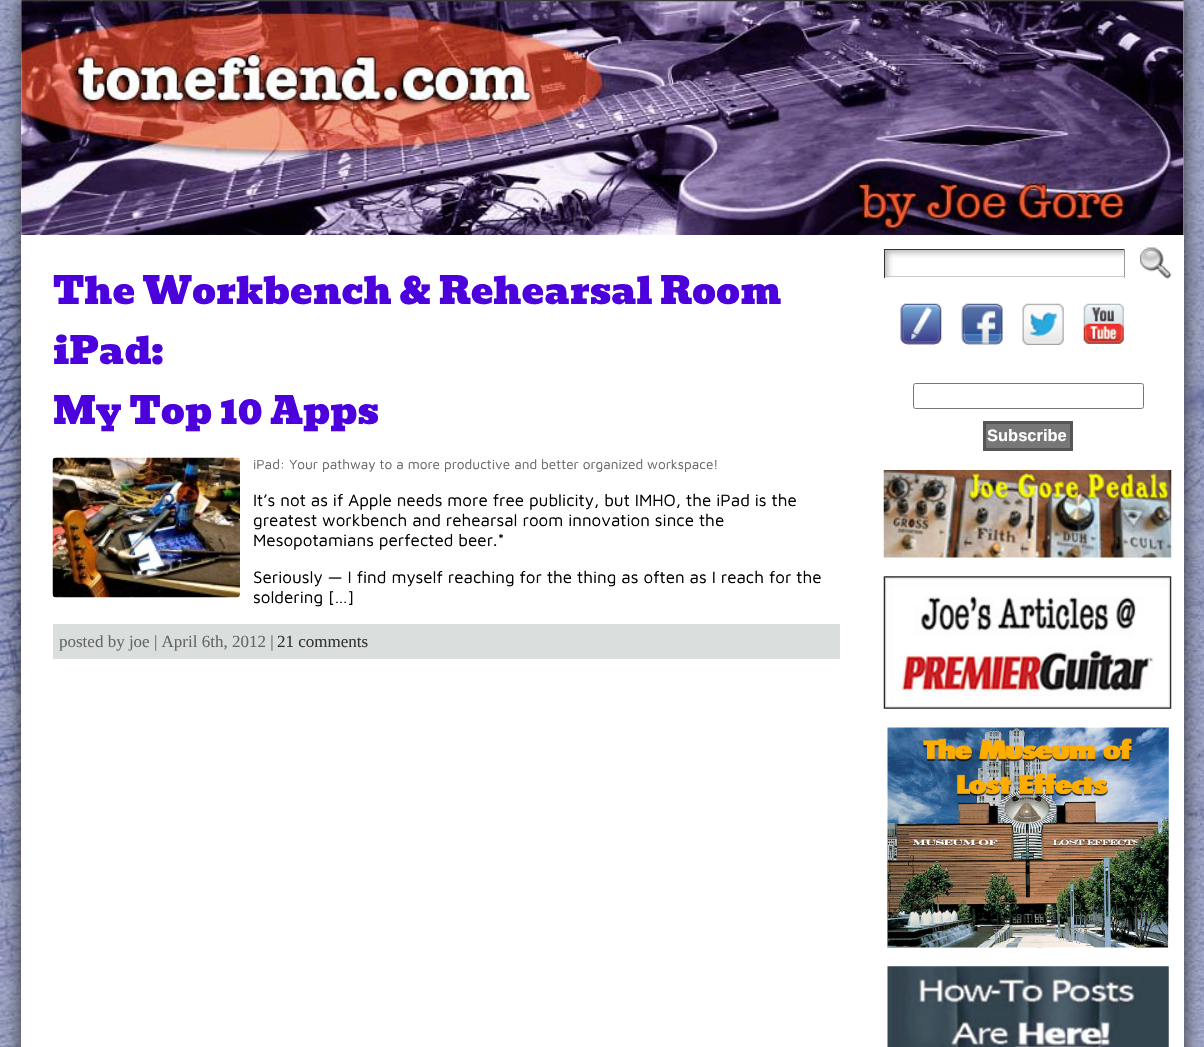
#include "include/core/SkBlurTypes.h"
#include "include/core/SkCanvas.h"
#include "include/core/SkData.h"
#include "include/core/SkFont.h"
#include "include/core/SkFontMgr.h"
#include "include/core/SkImage.h"
#include "include/core/SkMaskFilter.h"
#include "include/core/SkPaint.h"
#include "include/core/SkPathBuilder.h"
#include "include/core/SkTextBlob.h"
#include "include/effects/SkDashPathEffect.h"
#include "include/effects/SkGradientShader.h"
#include "include/utils/SkParsePath.h"

extern sk_sp<SkFontMgr> fontMgr;

static SkFont font(const char* family, int weight, float size, bool italic = false) {
    SkFontStyle style(weight, SkFontStyle::kNormal_Width,
        italic ? SkFontStyle::kItalic_Slant : SkFontStyle::kUpright_Slant);
    SkFont result(fontMgr->matchFamilyStyle(family, style), size);
    result.setSubpixel(true);
    return result;
}

static void drawLabel(SkCanvas* canvas, const char* s, float x, float y, const SkFont& font, SkColor color) {
    SkPaint ink(SkColor4f::FromColor(color));
    ink.setAntiAlias(true);
    canvas->drawString(s, x, y, font, ink);
}

static void fillRect(SkCanvas* canvas, float x, float y, float w, float h, SkColor color) {
    SkPaint ink(SkColor4f::FromColor(color));
    ink.setAntiAlias(true);
    canvas->drawRect(SkRect::MakeXYWH(x, y, w, h), ink);
}

static void drawPhoto(SkCanvas* canvas, const char* path, float x, float y, float w, float h) {
    auto image = SkImages::DeferredFromEncodedData(SkData::MakeFromFileName(path));
    canvas->drawImageRect(image, SkRect::MakeXYWH(x, y, w, h), SkSamplingOptions());
}

void draw(SkCanvas* canvas) {
    SkPaint paint;
    paint.setAntiAlias(true);
    canvas->clear(0xFFFFFFFF);
    drawPhoto(canvas, "assets/img1.png", 0, 0, 1204, 1047);
    paint.setColor(0xFF333333);
    paint.setMaskFilter(SkMaskFilter::MakeBlur(kNormal_SkBlurStyle, 9.5f));
    canvas->drawRect(SkRect::MakeXYWH(21, 0, 1163, 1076), paint);
    paint.setMaskFilter(nullptr);
    fillRect(canvas, 21, 0, 1163, 1047, 0xFFFFFFFF);
    drawPhoto(canvas, "assets/img2.png", 21, 0, 1163, 235);
    SkFont font1 = font("Bevan", 400, 37.4f);
    drawLabel(canvas, "The Workbench & Rehearsal Room", 53, 304, font1, 0xFF4B00DC);
    drawLabel(canvas, "iPad:", 53, 364, font1, 0xFF4B00DC);
    drawLabel(canvas, "My Top 10 Apps", 53, 424, font1, 0xFF4B00DC);
    drawPhoto(canvas, "assets/img3.png", 52, 457, 188, 141);
    SkFont font2 = font("Maven Pro", 400, 13.6f);
    drawLabel(canvas, "iPad: Your pathway to a more productive and better organized workspace!", 253, 469, font2, 0xFF666666);
    SkFont font3 = font("Maven Pro", 400, 17);
    drawLabel(canvas, "It’s not as if Apple needs more free publicity, but IMHO, the iPad is the", 253, 506, font3, 0xFF000000);
    drawLabel(canvas, "greatest workbench and rehearsal room innovation since the", 253, 526, font3, 0xFF000000);
    drawLabel(canvas, "Mesopotamians perfected beer.*", 253, 546, font3, 0xFF000000);
    drawLabel(canvas, "Seriously — I find myself reaching for the thing as often as I reach for the", 253, 583, font3, 0xFF000000);
    drawLabel(canvas, "soldering […]", 253, 603, font3, 0xFF000000);
    fillRect(canvas, 53, 624, 787, 35, 0xFFDADFDD);
    SkFont font4 = font("Liberation Serif", 400, 17);
    drawLabel(canvas, "posted by joe | April 6th, 2012 |", 59, 647, font4, 0xFF666666);
    drawLabel(canvas, "21 comments", 277, 647, font4, 0xFF333333);
    drawPhoto(canvas, "assets/img4.png", 885, 250, 239, 28);
    fillRect(canvas, 884, 249, 241, 1, 0xFF333333);
    fillRect(canvas, 1124, 249, 1, 29, 0xFF999999);
    fillRect(canvas, 884, 276, 241, 1, 0xFFCCCCCC);
    fillRect(canvas, 884, 249, 1, 29, 0xFF333333);
    drawPhoto(canvas, "assets/img5.png", 1140, 247, 32, 32);
    drawPhoto(canvas, "assets/img6.png", 900, 303, 42, 42);
    drawPhoto(canvas, "assets/img7.png", 961, 303, 42, 42);
    drawPhoto(canvas, "assets/img8.png", 1022, 303, 42, 42);
    drawPhoto(canvas, "assets/img9.png", 1083, 303, 41, 41);
    paint.setStroke(true);
    paint.setStrokeWidth(1);
    paint.setColor(0xFF767676);
    canvas->drawRoundRect(SkRect::MakeXYWH(913.5f, 383.5f, 230, 25), 2, 2, paint);
    paint.setStroke(false);
    paint.setColor(0xFF777777);
    canvas->drawRect(SkRect::MakeXYWH(984.5f, 422.5f, 87, 27), paint);
    paint.setStroke(true);
    paint.setStrokeWidth(3);
    paint.setColor(0xFF555555);
    canvas->drawRect(SkRect::MakeXYWH(984.5f, 422.5f, 87, 27), paint);
    SkFont font5 = font("Liberation Sans", 700, 16.5f);
    drawLabel(canvas, "Subscribe", 987, 441, font5, 0xFFFFFFFF);
    drawPhoto(canvas, "assets/img10.png", 883, 470, 289, 88);
    drawPhoto(canvas, "assets/img11.png", 883, 576, 289, 133);
    drawPhoto(canvas, "assets/img12.png", 887, 727, 282, 221);
    drawPhoto(canvas, "assets/img13.png", 887, 966, 282, 81);
}
